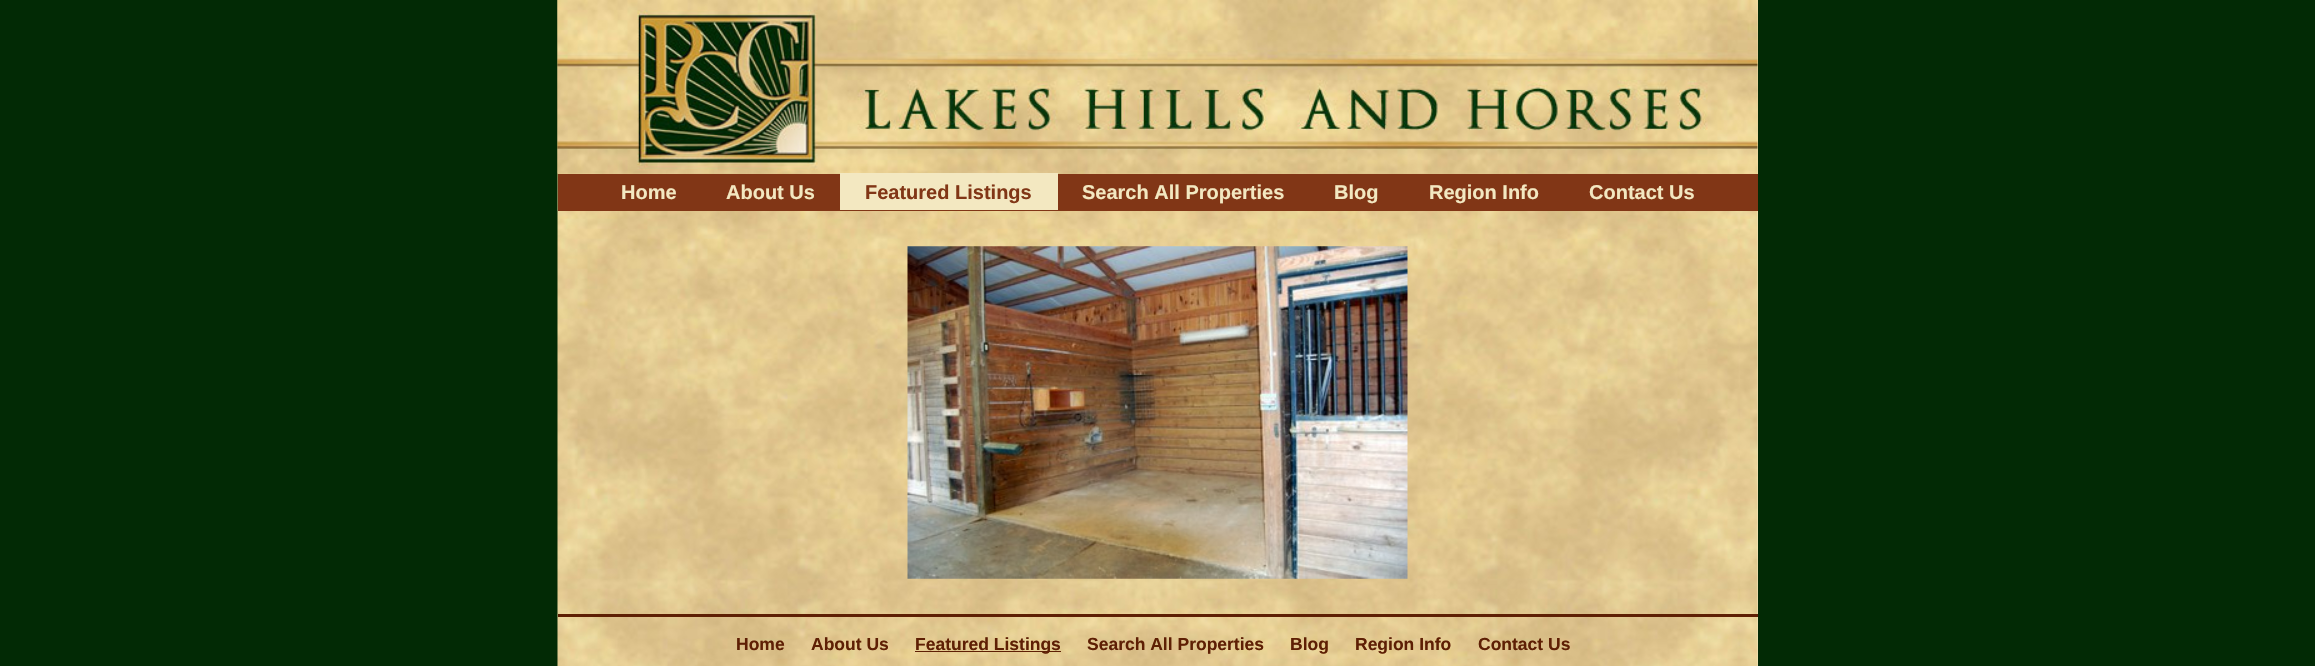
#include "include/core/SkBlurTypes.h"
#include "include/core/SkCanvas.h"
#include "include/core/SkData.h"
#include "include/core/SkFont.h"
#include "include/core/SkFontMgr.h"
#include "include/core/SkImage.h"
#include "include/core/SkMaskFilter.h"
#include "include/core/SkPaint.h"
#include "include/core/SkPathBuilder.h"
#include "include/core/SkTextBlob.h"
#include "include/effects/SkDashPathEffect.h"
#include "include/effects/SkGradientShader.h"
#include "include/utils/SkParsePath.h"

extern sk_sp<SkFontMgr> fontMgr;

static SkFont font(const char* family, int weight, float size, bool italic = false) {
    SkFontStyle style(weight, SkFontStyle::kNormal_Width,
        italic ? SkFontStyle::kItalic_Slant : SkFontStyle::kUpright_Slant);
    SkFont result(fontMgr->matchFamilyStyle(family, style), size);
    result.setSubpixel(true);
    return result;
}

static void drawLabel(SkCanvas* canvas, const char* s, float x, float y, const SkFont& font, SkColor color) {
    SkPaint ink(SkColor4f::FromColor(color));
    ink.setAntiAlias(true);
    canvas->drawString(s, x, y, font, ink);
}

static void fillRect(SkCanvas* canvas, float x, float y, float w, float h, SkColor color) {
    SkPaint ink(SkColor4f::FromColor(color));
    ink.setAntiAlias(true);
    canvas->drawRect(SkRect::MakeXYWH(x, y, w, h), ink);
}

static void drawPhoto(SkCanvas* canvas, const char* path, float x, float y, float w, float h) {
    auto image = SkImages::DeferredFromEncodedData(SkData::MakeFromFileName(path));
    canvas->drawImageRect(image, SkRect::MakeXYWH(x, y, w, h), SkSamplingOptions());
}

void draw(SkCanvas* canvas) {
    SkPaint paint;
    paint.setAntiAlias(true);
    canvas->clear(0xFF022A05);
    fillRect(canvas, 1757, 0, 1, 666, 0xFFF3E8C1);
    drawPhoto(canvas, "assets/img1.png", 557, 0, 1201, 666);
    drawPhoto(canvas, "assets/img2.png", 557, 0, 1201, 174);
    fillRect(canvas, 558, 174, 1200, 37, 0xFF813616);
    SkFont font1 = font("Liberation Sans", 700, 20);
    drawLabel(canvas, "Home", 621, 199, font1, 0xFFF3E8C1);
    drawLabel(canvas, "About Us", 726, 199, font1, 0xFFF3E8C1);
    fillRect(canvas, 840, 173, 218, 37, 0xFFF3E8C1);
    drawLabel(canvas, "Featured Listings", 865, 199, font1, 0xFF813616);
    drawLabel(canvas, "Search All Properties", 1082, 199, font1, 0xFFF3E8C1);
    drawLabel(canvas, "Blog", 1334, 199, font1, 0xFFF3E8C1);
    drawLabel(canvas, "Region Info", 1429, 199, font1, 0xFFF3E8C1);
    drawLabel(canvas, "Contact Us", 1589, 199, font1, 0xFFF3E8C1);
    drawPhoto(canvas, "assets/img3.png", 907, 246, 501, 333);
    fillRect(canvas, 558, 614, 1200, 3, 0xFF5E1F04);
    SkFont font2 = font("Liberation Sans", 700, 17.5f);
    drawLabel(canvas, "Home", 736, 650, font2, 0xFF5E1F04);
    drawLabel(canvas, "About Us", 811, 650, font2, 0xFF5E1F04);
    fillRect(canvas, 915, 651, 146, 1, 0xFF5E1F04);
    drawLabel(canvas, "Featured Listings", 915, 650, font2, 0xFF5E1F04);
    drawLabel(canvas, "Search All Properties", 1087, 650, font2, 0xFF5E1F04);
    drawLabel(canvas, "Blog", 1290, 650, font2, 0xFF5E1F04);
    drawLabel(canvas, "Region Info", 1355, 650, font2, 0xFF5E1F04);
    drawLabel(canvas, "Contact Us", 1478, 650, font2, 0xFF5E1F04);
}
